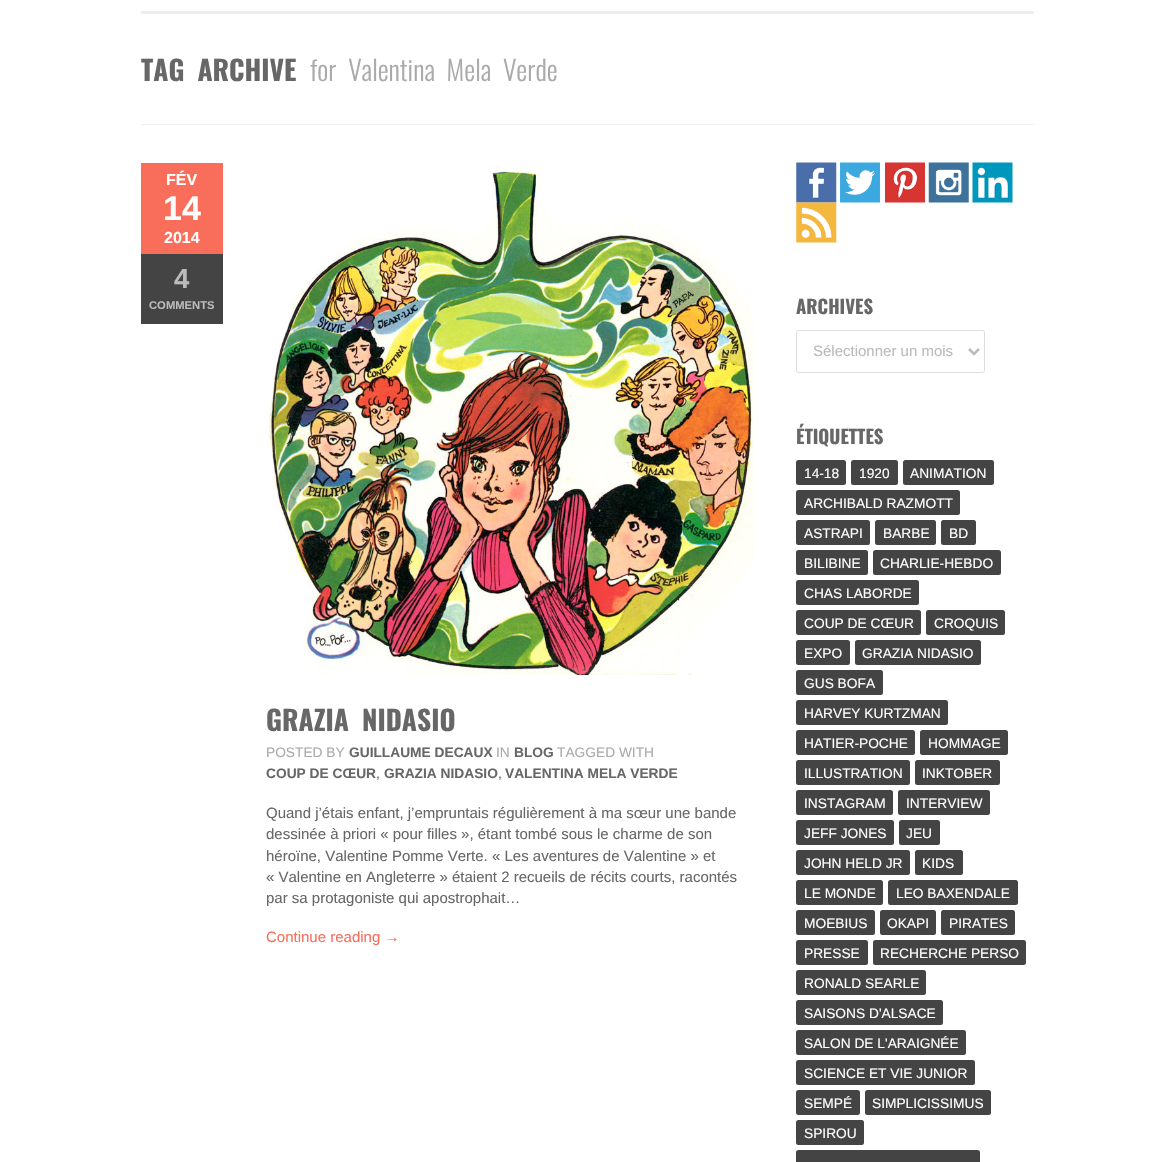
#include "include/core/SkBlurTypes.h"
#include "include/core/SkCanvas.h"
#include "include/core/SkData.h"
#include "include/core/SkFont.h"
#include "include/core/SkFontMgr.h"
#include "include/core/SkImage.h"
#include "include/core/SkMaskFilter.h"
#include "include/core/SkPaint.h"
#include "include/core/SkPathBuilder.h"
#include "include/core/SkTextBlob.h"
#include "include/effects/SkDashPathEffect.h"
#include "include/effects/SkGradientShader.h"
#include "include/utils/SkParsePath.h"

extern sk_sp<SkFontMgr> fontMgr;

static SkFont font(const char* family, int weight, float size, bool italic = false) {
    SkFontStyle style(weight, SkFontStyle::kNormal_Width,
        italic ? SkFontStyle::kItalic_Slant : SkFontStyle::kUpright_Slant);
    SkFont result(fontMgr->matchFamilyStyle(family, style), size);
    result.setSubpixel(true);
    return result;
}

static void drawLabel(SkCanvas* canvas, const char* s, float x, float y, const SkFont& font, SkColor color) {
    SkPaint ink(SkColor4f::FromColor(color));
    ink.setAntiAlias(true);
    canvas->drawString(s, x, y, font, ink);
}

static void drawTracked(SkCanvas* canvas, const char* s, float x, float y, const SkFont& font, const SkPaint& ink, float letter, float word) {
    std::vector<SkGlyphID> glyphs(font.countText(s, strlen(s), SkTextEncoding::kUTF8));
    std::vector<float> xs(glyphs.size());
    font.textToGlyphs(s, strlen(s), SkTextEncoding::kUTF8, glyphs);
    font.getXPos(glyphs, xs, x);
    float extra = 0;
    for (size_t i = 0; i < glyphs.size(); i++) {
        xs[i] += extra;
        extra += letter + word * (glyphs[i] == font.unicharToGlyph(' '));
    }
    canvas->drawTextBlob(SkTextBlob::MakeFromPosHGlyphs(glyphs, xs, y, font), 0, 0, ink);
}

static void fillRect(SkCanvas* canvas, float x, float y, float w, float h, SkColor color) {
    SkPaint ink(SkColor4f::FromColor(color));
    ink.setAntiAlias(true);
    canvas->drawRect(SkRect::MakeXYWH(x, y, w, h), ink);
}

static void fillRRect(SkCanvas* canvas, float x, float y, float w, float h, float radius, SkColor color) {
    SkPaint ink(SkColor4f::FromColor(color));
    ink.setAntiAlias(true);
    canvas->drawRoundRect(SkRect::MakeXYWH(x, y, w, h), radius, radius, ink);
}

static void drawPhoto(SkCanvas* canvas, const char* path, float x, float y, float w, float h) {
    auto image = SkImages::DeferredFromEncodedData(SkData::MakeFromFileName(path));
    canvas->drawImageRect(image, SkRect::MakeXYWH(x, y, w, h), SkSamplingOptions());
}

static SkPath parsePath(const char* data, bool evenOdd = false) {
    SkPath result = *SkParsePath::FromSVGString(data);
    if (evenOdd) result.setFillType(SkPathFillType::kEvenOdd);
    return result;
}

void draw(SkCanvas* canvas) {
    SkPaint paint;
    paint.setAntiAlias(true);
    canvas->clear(0xFFFFFFFF);
    fillRect(canvas, 141, 11, 893, 3, 0xFFEEEEEE);
    fillRect(canvas, 141, 124, 893, 1, 0xFFEEEEEE);
    SkFont font1 = font("Oswald", 700, 27.5f);
    paint.setColor(0xFF676767);
    drawTracked(canvas, "TAG ARCHIVE", 141, 81, font1, paint, 0, 6);
    SkFont font2 = font("Oswald", 300, 27.5f);
    paint.setColor(0xFFAAAAAA);
    drawTracked(canvas, "for Valentina Mela Verde", 310, 81, font2, paint, 0, 6);
    fillRect(canvas, 141, 163, 82, 91, 0xFFF96E5B);
    SkFont font3 = font("Liberation Sans", 700, 16);
    drawLabel(canvas, "FÉV", 166, 185, font3, 0xFFFFFFFF);
    SkFont font4 = font("Liberation Sans", 700, 34);
    drawLabel(canvas, "14", 163, 220, font4, 0xFFFFFFFF);
    drawLabel(canvas, "2014", 164, 243, font3, 0xFFFFFFFF);
    fillRect(canvas, 141, 254, 82, 70, 0xFF444444);
    SkFont font5 = font("Liberation Sans", 700, 27.5f);
    drawLabel(canvas, "4", 174, 288, font5, 0xFFBBBBBB);
    SkFont font6 = font("Liberation Sans", 700, 11.25f);
    drawLabel(canvas, "COMMENTS", 149, 309, font6, 0xFFBBBBBB);
    drawPhoto(canvas, "assets/img1.png", 267, 165, 487, 510);
    paint.setColor(0xFF676767);
    drawTracked(canvas, "GRAZIA NIDASIO", 266, 731, font1, paint, 0, 6);
    SkFont font7 = font("Liberation Sans", 400, 13.75f);
    drawLabel(canvas, "TAGGED WITH", 557, 757, font7, 0xFFAAAAAA);
    SkFont font8 = font("Liberation Sans", 700, 13.75f);
    drawLabel(canvas, "COUP DE CŒUR", 266, 778, font8, 0xFF676767);
    drawLabel(canvas, ",", 376, 778, font7, 0xFF676767);
    drawLabel(canvas, "GRAZIA NIDASIO", 384, 778, font8, 0xFF676767);
    drawLabel(canvas, ",", 498, 778, font7, 0xFF676767);
    drawLabel(canvas, "VALENTINA MELA VERDE", 505, 778, font8, 0xFF676767);
    drawLabel(canvas, "POSTED BY", 266, 757, font7, 0xFFAAAAAA);
    drawLabel(canvas, "GUILLAUME DECAUX", 349, 757, font8, 0xFF676767);
    drawLabel(canvas, "IN", 496, 757, font7, 0xFFAAAAAA);
    drawLabel(canvas, "BLOG", 514, 757, font8, 0xFF676767);
    SkFont font9 = font("Liberation Sans", 400, 15);
    drawLabel(canvas, "Quand j’étais enfant, j’empruntais régulièrement à ma sœur une bande", 266, 818, font9, 0xFF676767);
    drawLabel(canvas, "dessinée à priori « pour filles », étant tombé sous le charme de son", 266, 839, font9, 0xFF676767);
    drawLabel(canvas, "héroïne, Valentine Pomme Verte. « Les aventures de Valentine » et", 266, 861, font9, 0xFF676767);
    drawLabel(canvas, "« Valentine en Angleterre » étaient 2 recueils de récits courts, racontés", 266, 882, font9, 0xFF676767);
    drawLabel(canvas, "par sa protagoniste qui apostrophait…", 266, 903, font9, 0xFF676767);
    drawLabel(canvas, "Continue reading →", 266, 942, font9, 0xFFF96E5B);
    drawPhoto(canvas, "assets/img2.png", 796, 162, 41, 41);
    drawPhoto(canvas, "assets/img3.png", 840, 162, 40, 41);
    drawPhoto(canvas, "assets/img4.png", 885, 162, 40, 41);
    drawPhoto(canvas, "assets/img5.png", 928, 162, 41, 41);
    drawPhoto(canvas, "assets/img6.png", 972, 162, 41, 41);
    drawPhoto(canvas, "assets/img7.png", 796, 202, 41, 41);
    SkFont font10 = font("Oswald", 700, 18.75f);
    drawLabel(canvas, "ARCHIVES", 796, 314, font10, 0xFF676767);
    paint.setStroke(true);
    paint.setStrokeWidth(1);
    paint.setColor(0xFFDDDDDD);
    canvas->drawRoundRect(SkRect::MakeXYWH(796.5f, 330.5f, 188, 42), 2, 2, paint);
    paint.setStrokeWidth(2.5f);
    paint.setColor(0xFFBBBBBB);
    canvas->drawPath(parsePath("M969 349L974 354L979 349"), paint);
    drawLabel(canvas, "Sélectionner un mois", 813, 356, font9, 0xFFBBBBBB);
    drawLabel(canvas, "ÉTIQUETTES", 796, 444, font10, 0xFF676767);
    fillRRect(canvas, 796, 460, 50, 25, 2.5f, 0xFF444444);
    drawLabel(canvas, "14-18", 804, 478, font7, 0xFFFFFFFF);
    fillRRect(canvas, 851, 460, 47, 25, 2.5f, 0xFF444444);
    drawLabel(canvas, "1920", 859, 478, font7, 0xFFFFFFFF);
    fillRRect(canvas, 903, 460, 91, 25, 2.5f, 0xFF444444);
    drawLabel(canvas, "ANIMATION", 910, 478, font7, 0xFFFFFFFF);
    fillRRect(canvas, 796, 490, 164, 25, 2.5f, 0xFF444444);
    drawLabel(canvas, "ARCHIBALD RAZMOTT", 804, 508, font7, 0xFFFFFFFF);
    fillRRect(canvas, 796, 520, 74, 25, 2.5f, 0xFF444444);
    drawLabel(canvas, "ASTRAPI", 804, 538, font7, 0xFFFFFFFF);
    fillRRect(canvas, 875, 520, 61, 25, 2.5f, 0xFF444444);
    drawLabel(canvas, "BARBE", 883, 538, font7, 0xFFFFFFFF);
    fillRRect(canvas, 941, 520, 35, 25, 2.5f, 0xFF444444);
    drawLabel(canvas, "BD", 949, 538, font7, 0xFFFFFFFF);
    fillRRect(canvas, 796, 550, 72, 25, 2.5f, 0xFF444444);
    drawLabel(canvas, "BILIBINE", 804, 568, font7, 0xFFFFFFFF);
    fillRRect(canvas, 873, 550, 128, 25, 2.5f, 0xFF444444);
    drawLabel(canvas, "CHARLIE-HEBDO", 880, 568, font7, 0xFFFFFFFF);
    fillRRect(canvas, 796, 580, 123, 25, 2.5f, 0xFF444444);
    drawLabel(canvas, "CHAS LABORDE", 804, 598, font7, 0xFFFFFFFF);
    fillRRect(canvas, 796, 610, 125, 25, 2.5f, 0xFF444444);
    drawLabel(canvas, "COUP DE CŒUR", 804, 628, font7, 0xFFFFFFFF);
    fillRRect(canvas, 926, 610, 79, 25, 2.5f, 0xFF444444);
    drawLabel(canvas, "CROQUIS", 934, 628, font7, 0xFFFFFFFF);
    fillRRect(canvas, 796, 640, 54, 25, 2.5f, 0xFF444444);
    drawLabel(canvas, "EXPO", 804, 658, font7, 0xFFFFFFFF);
    fillRRect(canvas, 855, 640, 126, 25, 2.5f, 0xFF444444);
    drawLabel(canvas, "GRAZIA NIDASIO", 862, 658, font7, 0xFFFFFFFF);
    fillRRect(canvas, 796, 670, 87, 25, 2.5f, 0xFF444444);
    drawLabel(canvas, "GUS BOFA", 804, 688, font7, 0xFFFFFFFF);
    fillRRect(canvas, 796, 700, 152, 25, 2.5f, 0xFF444444);
    drawLabel(canvas, "HARVEY KURTZMAN", 804, 718, font7, 0xFFFFFFFF);
    fillRRect(canvas, 796, 730, 119, 25, 2.5f, 0xFF444444);
    drawLabel(canvas, "HATIER-POCHE", 804, 748, font7, 0xFFFFFFFF);
    fillRRect(canvas, 920, 730, 88, 25, 2.5f, 0xFF444444);
    drawLabel(canvas, "HOMMAGE", 928, 748, font7, 0xFFFFFFFF);
    fillRRect(canvas, 796, 760, 114, 25, 2.5f, 0xFF444444);
    drawLabel(canvas, "ILLUSTRATION", 804, 778, font7, 0xFFFFFFFF);
    fillRRect(canvas, 915, 760, 85, 25, 2.5f, 0xFF444444);
    drawLabel(canvas, "INKTOBER", 922, 778, font7, 0xFFFFFFFF);
    fillRRect(canvas, 796, 790, 97, 25, 2.5f, 0xFF444444);
    drawLabel(canvas, "INSTAGRAM", 804, 808, font7, 0xFFFFFFFF);
    fillRRect(canvas, 898, 790, 92, 25, 2.5f, 0xFF444444);
    drawLabel(canvas, "INTERVIEW", 906, 808, font7, 0xFFFFFFFF);
    fillRRect(canvas, 796, 820, 98, 25, 2.5f, 0xFF444444);
    drawLabel(canvas, "JEFF JONES", 804, 838, font7, 0xFFFFFFFF);
    fillRRect(canvas, 899, 820, 41, 25, 2.5f, 0xFF444444);
    drawLabel(canvas, "JEU", 906, 838, font7, 0xFFFFFFFF);
    fillRRect(canvas, 796, 850, 114, 25, 2.5f, 0xFF444444);
    drawLabel(canvas, "JOHN HELD JR", 804, 868, font7, 0xFFFFFFFF);
    fillRRect(canvas, 915, 850, 48, 25, 2.5f, 0xFF444444);
    drawLabel(canvas, "KIDS", 922, 868, font7, 0xFFFFFFFF);
    fillRRect(canvas, 796, 880, 87, 25, 2.5f, 0xFF444444);
    drawLabel(canvas, "LE MONDE", 804, 898, font7, 0xFFFFFFFF);
    fillRRect(canvas, 888, 880, 130, 25, 2.5f, 0xFF444444);
    drawLabel(canvas, "LEO BAXENDALE", 896, 898, font7, 0xFFFFFFFF);
    fillRRect(canvas, 796, 910, 79, 25, 2.5f, 0xFF444444);
    drawLabel(canvas, "MOEBIUS", 804, 928, font7, 0xFFFFFFFF);
    fillRRect(canvas, 880, 910, 56, 25, 2.5f, 0xFF444444);
    drawLabel(canvas, "OKAPI", 887, 928, font7, 0xFFFFFFFF);
    fillRRect(canvas, 941, 910, 74, 25, 2.5f, 0xFF444444);
    drawLabel(canvas, "PIRATES", 949, 928, font7, 0xFFFFFFFF);
    fillRRect(canvas, 796, 940, 72, 25, 2.5f, 0xFF444444);
    drawLabel(canvas, "PRESSE", 804, 958, font7, 0xFFFFFFFF);
    fillRRect(canvas, 873, 940, 153, 25, 2.5f, 0xFF444444);
    drawLabel(canvas, "RECHERCHE PERSO", 880, 958, font7, 0xFFFFFFFF);
    fillRRect(canvas, 796, 970, 130, 25, 2.5f, 0xFF444444);
    drawLabel(canvas, "RONALD SEARLE", 804, 988, font7, 0xFFFFFFFF);
    fillRRect(canvas, 796, 1000, 147, 25, 2.5f, 0xFF444444);
    drawLabel(canvas, "SAISONS D'ALSACE", 804, 1018, font7, 0xFFFFFFFF);
    fillRRect(canvas, 796, 1030, 170, 25, 2.5f, 0xFF444444);
    drawLabel(canvas, "SALON DE L'ARAIGNÉE", 804, 1048, font7, 0xFFFFFFFF);
    fillRRect(canvas, 796, 1060, 179, 25, 2.5f, 0xFF444444);
    drawLabel(canvas, "SCIENCE ET VIE JUNIOR", 804, 1078, font7, 0xFFFFFFFF);
    fillRRect(canvas, 796, 1090, 64, 25, 2.5f, 0xFF444444);
    drawLabel(canvas, "SEMPÉ", 804, 1108, font7, 0xFFFFFFFF);
    fillRRect(canvas, 865, 1090, 126, 25, 2.5f, 0xFF444444);
    drawLabel(canvas, "SIMPLICISSIMUS", 872, 1108, font7, 0xFFFFFFFF);
    fillRRect(canvas, 796, 1120, 68, 25, 2.5f, 0xFF444444);
    drawLabel(canvas, "SPIROU", 804, 1138, font7, 0xFFFFFFFF);
    fillRRect(canvas, 796, 1150, 184, 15, 2.5f, 0xFF444444);
}
